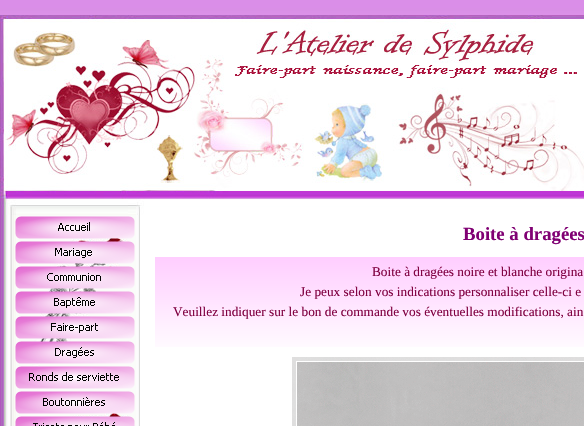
#include "include/core/SkBlurTypes.h"
#include "include/core/SkCanvas.h"
#include "include/core/SkData.h"
#include "include/core/SkFont.h"
#include "include/core/SkFontMgr.h"
#include "include/core/SkImage.h"
#include "include/core/SkMaskFilter.h"
#include "include/core/SkPaint.h"
#include "include/core/SkPathBuilder.h"
#include "include/core/SkTextBlob.h"
#include "include/effects/SkDashPathEffect.h"
#include "include/effects/SkGradientShader.h"
#include "include/utils/SkParsePath.h"

extern sk_sp<SkFontMgr> fontMgr;

static SkFont font(const char* family, int weight, float size, bool italic = false) {
    SkFontStyle style(weight, SkFontStyle::kNormal_Width,
        italic ? SkFontStyle::kItalic_Slant : SkFontStyle::kUpright_Slant);
    SkFont result(fontMgr->matchFamilyStyle(family, style), size);
    result.setSubpixel(true);
    return result;
}

static void drawLabel(SkCanvas* canvas, const char* s, float x, float y, const SkFont& font, SkColor color) {
    SkPaint ink(SkColor4f::FromColor(color));
    ink.setAntiAlias(true);
    canvas->drawString(s, x, y, font, ink);
}

static void drawPhoto(SkCanvas* canvas, const char* path, float x, float y, float w, float h) {
    auto image = SkImages::DeferredFromEncodedData(SkData::MakeFromFileName(path));
    canvas->drawImageRect(image, SkRect::MakeXYWH(x, y, w, h), SkSamplingOptions());
}

void draw(SkCanvas* canvas) {
    SkPaint paint;
    paint.setAntiAlias(true);
    canvas->clear(0xFFFFFFFF);
    drawPhoto(canvas, "assets/img1.png", 0, 0, 584, 15);
    drawPhoto(canvas, "assets/img2.png", 0, 15, 584, 200);
    drawPhoto(canvas, "assets/img3.png", 0, 215, 135, 211);
    drawPhoto(canvas, "assets/img4.png", 135, 215, 5, 211);
    drawPhoto(canvas, "assets/img5.png", 15, 216, 120, 23);
    drawPhoto(canvas, "assets/img6.png", 15, 241, 120, 23);
    drawPhoto(canvas, "assets/img7.png", 15, 266, 120, 23);
    drawPhoto(canvas, "assets/img8.png", 15, 291, 120, 23);
    drawPhoto(canvas, "assets/img9.png", 15, 316, 120, 23);
    drawPhoto(canvas, "assets/img10.png", 15, 341, 120, 23);
    drawPhoto(canvas, "assets/img11.png", 15, 366, 120, 23);
    drawPhoto(canvas, "assets/img12.png", 15, 391, 120, 23);
    drawPhoto(canvas, "assets/img13.png", 15, 416, 120, 10);
    SkFont font1 = font("Liberation Serif", 700, 18.75f);
    drawLabel(canvas, "Boite à dragées", 463, 240, font1, 0xFF800073);
    drawPhoto(canvas, "assets/img14.png", 155, 257, 429, 90);
    SkFont font2 = font("Liberation Serif", 400, 13.3f);
    drawLabel(canvas, "Boite à dragées noire et blanche origina", 372, 276, font2, 0xFF800040);
    drawLabel(canvas, "Je peux selon vos indications personnaliser celle-ci e", 300, 296, font2, 0xFF800040);
    drawLabel(canvas, "Veuillez indiquer sur le bon de commande vos éventuelles modifications, ain", 173, 316, font2, 0xFF800040);
    drawPhoto(canvas, "assets/img15.png", 292, 357, 292, 69);
}
